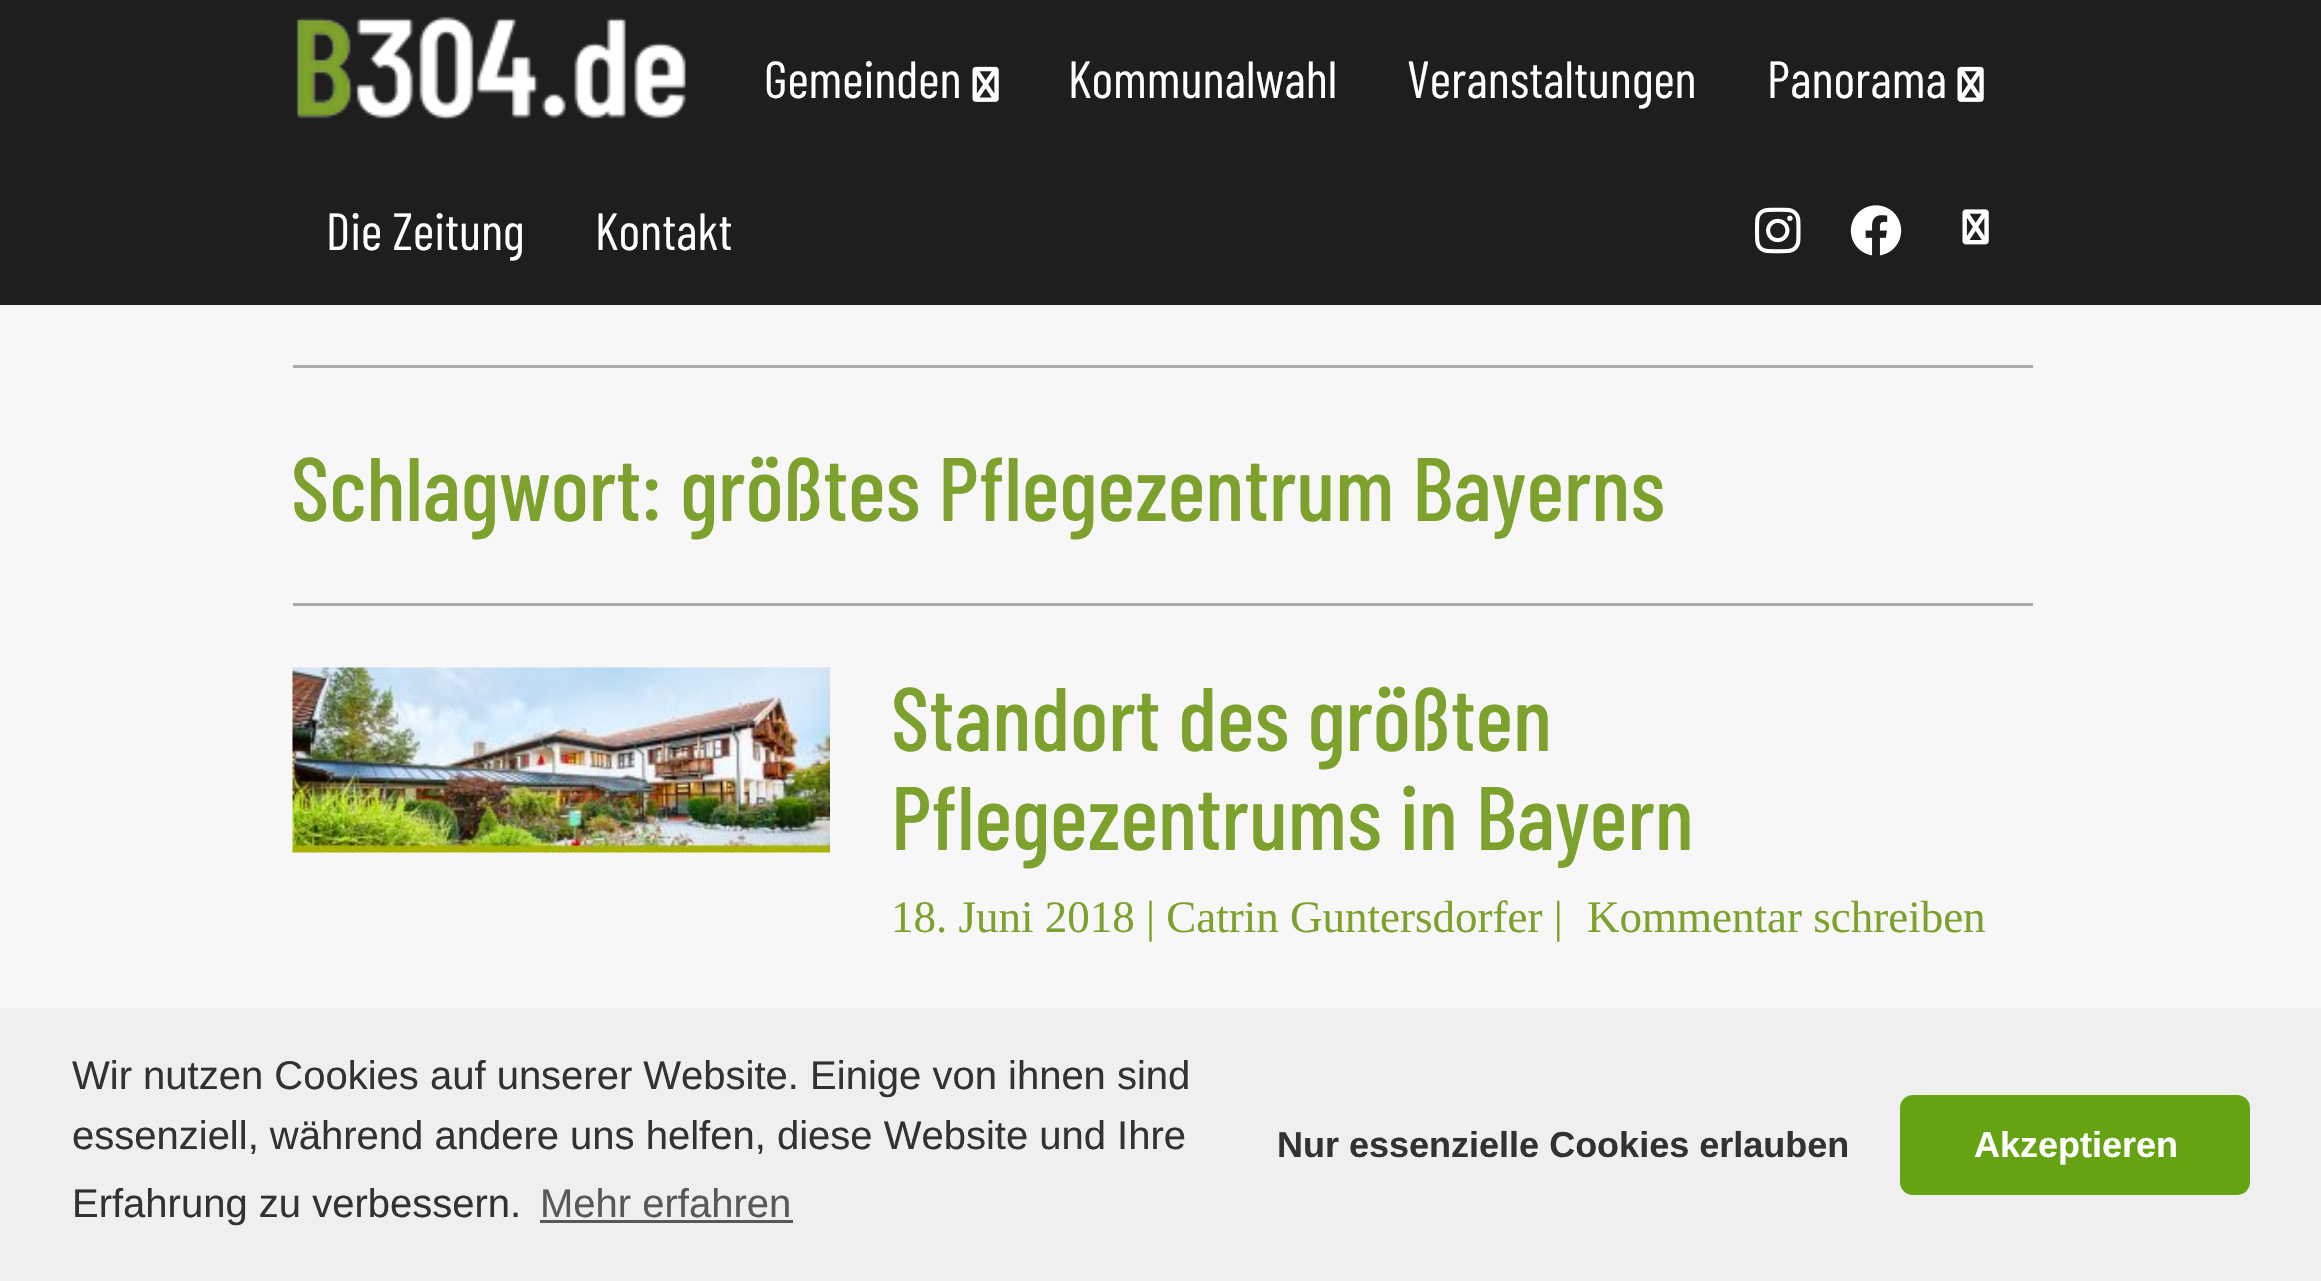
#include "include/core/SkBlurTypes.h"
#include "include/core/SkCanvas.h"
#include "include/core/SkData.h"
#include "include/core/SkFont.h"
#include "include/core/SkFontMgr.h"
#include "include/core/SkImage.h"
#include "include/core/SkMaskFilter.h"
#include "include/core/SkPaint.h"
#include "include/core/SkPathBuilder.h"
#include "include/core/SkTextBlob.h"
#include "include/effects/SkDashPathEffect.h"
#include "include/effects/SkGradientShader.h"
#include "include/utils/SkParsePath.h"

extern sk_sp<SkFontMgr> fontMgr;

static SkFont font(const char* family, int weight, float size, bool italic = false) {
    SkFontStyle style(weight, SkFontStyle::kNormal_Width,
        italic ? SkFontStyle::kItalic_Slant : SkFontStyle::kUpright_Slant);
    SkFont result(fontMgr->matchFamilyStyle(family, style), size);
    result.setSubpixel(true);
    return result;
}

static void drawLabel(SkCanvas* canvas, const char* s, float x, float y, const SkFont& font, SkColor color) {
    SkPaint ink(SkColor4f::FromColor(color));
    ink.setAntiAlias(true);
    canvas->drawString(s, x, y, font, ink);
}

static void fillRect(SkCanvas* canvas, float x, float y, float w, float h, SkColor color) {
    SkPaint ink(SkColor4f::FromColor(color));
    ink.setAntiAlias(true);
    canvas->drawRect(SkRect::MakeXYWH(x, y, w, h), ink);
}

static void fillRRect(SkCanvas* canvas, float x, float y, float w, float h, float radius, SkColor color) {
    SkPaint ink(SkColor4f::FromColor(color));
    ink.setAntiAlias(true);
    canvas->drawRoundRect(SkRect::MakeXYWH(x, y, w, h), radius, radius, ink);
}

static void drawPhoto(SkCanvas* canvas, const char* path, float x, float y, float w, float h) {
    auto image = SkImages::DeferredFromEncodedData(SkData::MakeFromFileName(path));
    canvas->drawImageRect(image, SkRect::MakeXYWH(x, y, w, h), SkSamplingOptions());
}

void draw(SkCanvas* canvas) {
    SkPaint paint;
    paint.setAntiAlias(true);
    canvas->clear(0xFFF7F7F7);
    fillRect(canvas, 0, 0, 2321, 305, 0xFF1E1E1E);
    drawPhoto(canvas, "assets/img1.png", 296, 16, 390, 104);
    SkFont font1 = font("Barlow Condensed", 400, 52);
    drawLabel(canvas, "Gemeinden", 764, 98, font1, 0xFFFFFFFF);
    drawPhoto(canvas, "assets/img2.png", 972, 66, 27, 36);
    drawLabel(canvas, "Kommunalwahl", 1068, 98, font1, 0xFFFFFFFF);
    drawLabel(canvas, "Veranstaltungen", 1407, 98, font1, 0xFFFFFFFF);
    drawLabel(canvas, "Panorama", 1767, 98, font1, 0xFFFFFFFF);
    drawPhoto(canvas, "assets/img2.png", 1957, 66, 27, 36);
    drawLabel(canvas, "Die Zeitung", 326, 250, font1, 0xFFFFFFFF);
    drawLabel(canvas, "Kontakt", 595, 250, font1, 0xFFFFFFFF);
    drawPhoto(canvas, "assets/img3.png", 1755, 207, 46, 47);
    drawPhoto(canvas, "assets/img4.png", 1850, 205, 52, 51);
    drawPhoto(canvas, "assets/img5.png", 1962, 209, 27, 36);
    fillRect(canvas, 293, 365, 1740, 3, 0xFFAAAAAA);
    fillRect(canvas, 293, 603, 1740, 3, 0xFFAAAAAA);
    SkFont font2 = font("Barlow Condensed", 500, 90);
    drawLabel(canvas, "Schlagwort: größtes Pflegezentrum Bayerns", 291, 521, font2, 0xFF7CA12D);
    drawPhoto(canvas, "assets/img6.png", 292, 667, 538, 186);
    drawLabel(canvas, "Standort des größten", 891, 751, font2, 0xFF7CA12D);
    drawLabel(canvas, "Pflegezentrums in Bayern", 891, 850, font2, 0xFF7CA12D);
    SkFont font3 = font("Liberation Serif", 400, 45);
    drawLabel(canvas, "18. Juni 2018 | Catrin Guntersdorfer |", 891, 932, font3, 0xFF7CA12D);
    drawLabel(canvas, "Kommentar schreiben", 1587, 932, font3, 0xFF7CA12D);
    fillRect(canvas, 0, 1008, 2321, 273, 0xFFEFEFEF);
    SkFont font4 = font("Liberation Sans", 400, 40);
    drawLabel(canvas, "Wir nutzen Cookies auf unserer Website. Einige von ihnen sind", 72, 1089, font4, 0xFF333232);
    drawLabel(canvas, "essenziell, während andere uns helfen, diese Website und Ihre", 72, 1149, font4, 0xFF333232);
    drawLabel(canvas, "Erfahrung zu verbessern.", 72, 1217, font4, 0xFF333232);
    drawLabel(canvas, "Mehr erfahren", 540, 1217, font4, 0xFF595858);
    fillRect(canvas, 540, 1220, 253, 3, 0xFF595858);
    SkFont font5 = font("Liberation Sans", 700, 36);
    drawLabel(canvas, "Nur essenzielle Cookies erlauben", 1277, 1157, font5, 0xFF333232);
    fillRRect(canvas, 1900, 1095, 350, 100, 13, 0xFF65A312);
    drawLabel(canvas, "Akzeptieren", 1974, 1157, font5, 0xFFFFFFFF);
}
